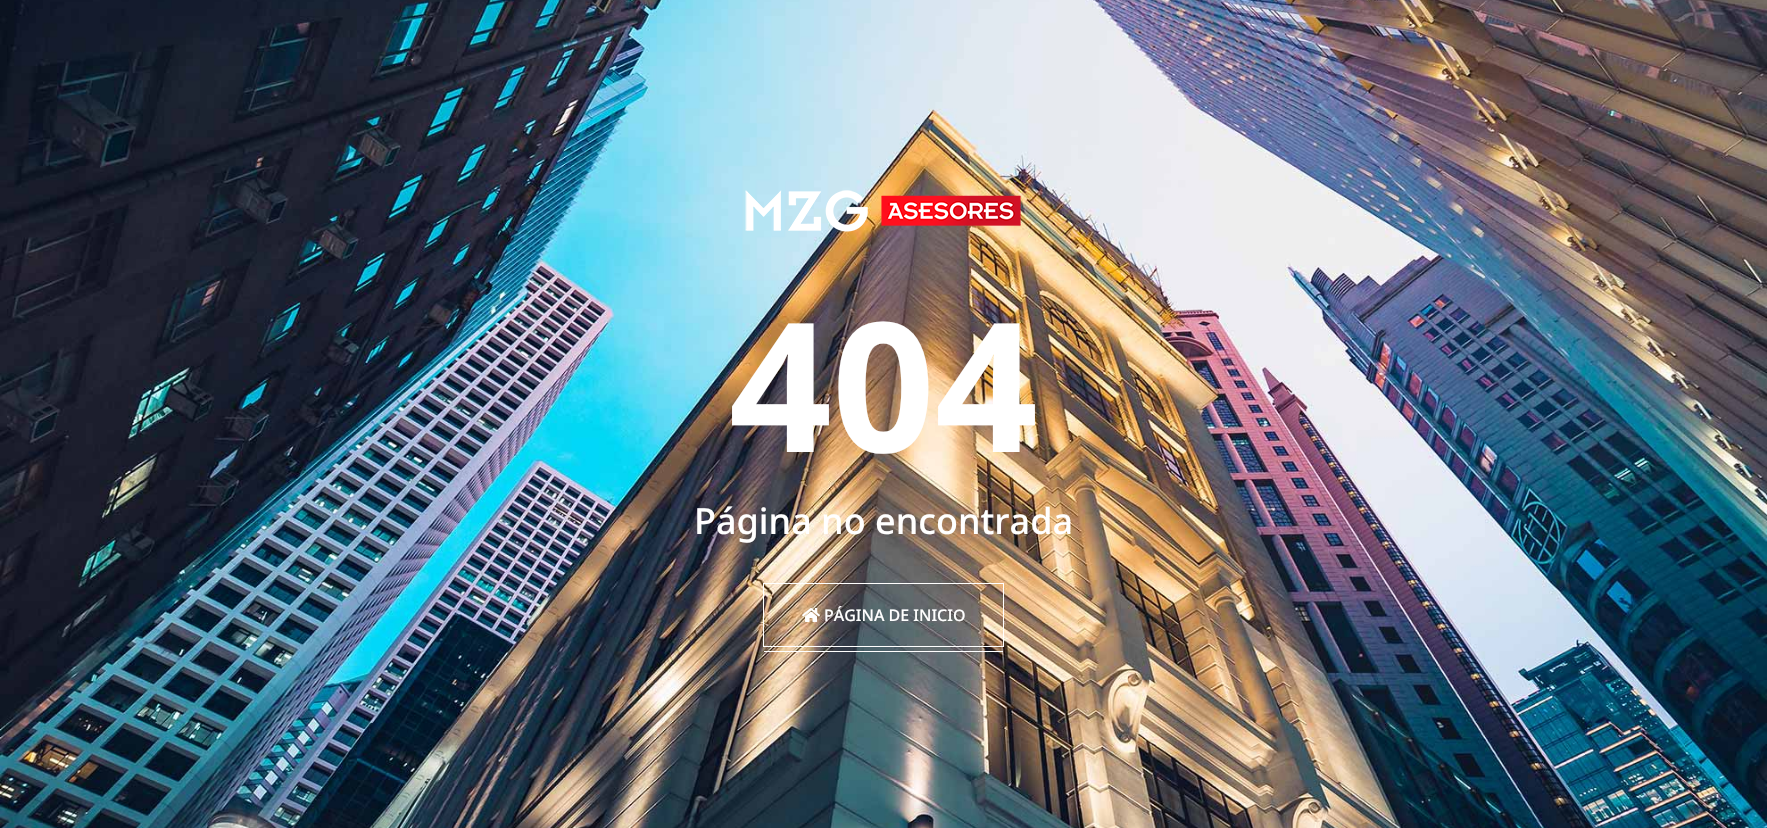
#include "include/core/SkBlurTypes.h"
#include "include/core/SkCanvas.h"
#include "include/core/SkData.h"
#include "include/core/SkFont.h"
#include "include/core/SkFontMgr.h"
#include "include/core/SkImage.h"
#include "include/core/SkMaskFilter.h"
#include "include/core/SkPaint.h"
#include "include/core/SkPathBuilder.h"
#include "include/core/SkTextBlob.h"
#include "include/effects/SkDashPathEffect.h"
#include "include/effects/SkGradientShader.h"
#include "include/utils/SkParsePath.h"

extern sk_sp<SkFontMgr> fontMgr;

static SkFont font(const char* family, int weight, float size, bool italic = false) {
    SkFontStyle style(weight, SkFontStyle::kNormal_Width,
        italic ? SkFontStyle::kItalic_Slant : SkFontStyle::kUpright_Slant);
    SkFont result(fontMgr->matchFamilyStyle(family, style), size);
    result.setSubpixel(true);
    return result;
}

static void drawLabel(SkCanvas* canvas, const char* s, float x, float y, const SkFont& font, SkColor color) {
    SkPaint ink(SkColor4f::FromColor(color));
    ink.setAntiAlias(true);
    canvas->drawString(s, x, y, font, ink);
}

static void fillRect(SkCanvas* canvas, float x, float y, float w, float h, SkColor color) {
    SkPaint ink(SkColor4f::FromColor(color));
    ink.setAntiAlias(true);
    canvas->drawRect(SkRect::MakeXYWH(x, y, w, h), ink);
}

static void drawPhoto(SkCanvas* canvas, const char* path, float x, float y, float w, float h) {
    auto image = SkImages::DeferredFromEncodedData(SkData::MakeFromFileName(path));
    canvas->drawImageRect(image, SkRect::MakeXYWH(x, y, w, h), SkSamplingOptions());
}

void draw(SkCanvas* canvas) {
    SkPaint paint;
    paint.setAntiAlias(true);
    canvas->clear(0xFFFFFFFF);
    drawPhoto(canvas, "assets/img1.png", 0, 0, 1767, 828);
    drawPhoto(canvas, "assets/img2.png", 745, 190, 276, 42);
    SkFont font1 = font("Noto Sans", 700, 180);
    drawLabel(canvas, "404", 729, 452, font1, 0xFFFFFFFF);
    SkFont font2 = font("Noto Sans", 500, 36);
    drawLabel(canvas, "Página no encontrada", 694, 534, font2, 0xFFFFFFFF);
    paint.setStroke(true);
    paint.setStrokeWidth(1);
    paint.setColor(0xFFFFFFFF);
    canvas->drawRect(SkRect::MakeXYWH(763.5f, 583.5f, 240, 63), paint);
    drawPhoto(canvas, "assets/img3.png", 802, 608, 18, 14);
    SkFont font3 = font("Noto Sans", 500, 16);
    drawLabel(canvas, "PÁGINA DE INICIO", 824, 621, font3, 0xFFFFFFFF);
    fillRect(canvas, 764, 651, 239, 1, 0xFFFFFFFF);
}
